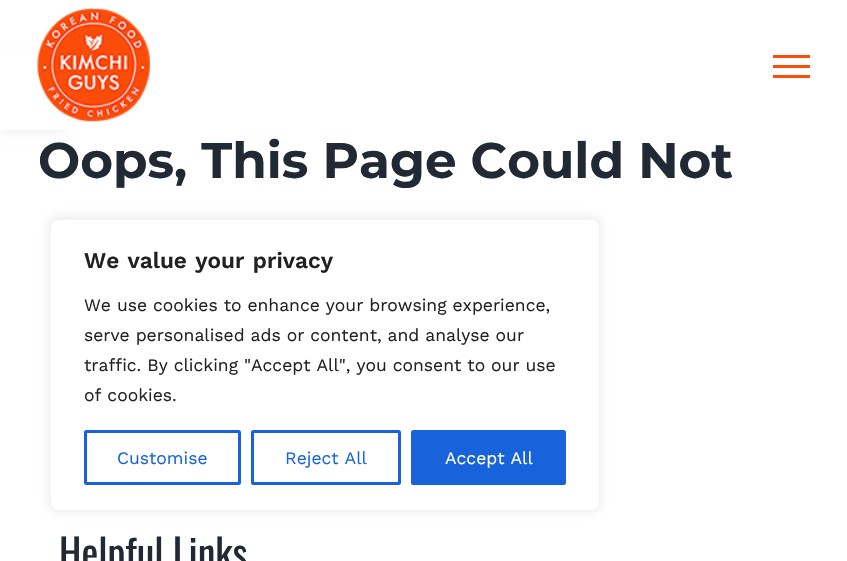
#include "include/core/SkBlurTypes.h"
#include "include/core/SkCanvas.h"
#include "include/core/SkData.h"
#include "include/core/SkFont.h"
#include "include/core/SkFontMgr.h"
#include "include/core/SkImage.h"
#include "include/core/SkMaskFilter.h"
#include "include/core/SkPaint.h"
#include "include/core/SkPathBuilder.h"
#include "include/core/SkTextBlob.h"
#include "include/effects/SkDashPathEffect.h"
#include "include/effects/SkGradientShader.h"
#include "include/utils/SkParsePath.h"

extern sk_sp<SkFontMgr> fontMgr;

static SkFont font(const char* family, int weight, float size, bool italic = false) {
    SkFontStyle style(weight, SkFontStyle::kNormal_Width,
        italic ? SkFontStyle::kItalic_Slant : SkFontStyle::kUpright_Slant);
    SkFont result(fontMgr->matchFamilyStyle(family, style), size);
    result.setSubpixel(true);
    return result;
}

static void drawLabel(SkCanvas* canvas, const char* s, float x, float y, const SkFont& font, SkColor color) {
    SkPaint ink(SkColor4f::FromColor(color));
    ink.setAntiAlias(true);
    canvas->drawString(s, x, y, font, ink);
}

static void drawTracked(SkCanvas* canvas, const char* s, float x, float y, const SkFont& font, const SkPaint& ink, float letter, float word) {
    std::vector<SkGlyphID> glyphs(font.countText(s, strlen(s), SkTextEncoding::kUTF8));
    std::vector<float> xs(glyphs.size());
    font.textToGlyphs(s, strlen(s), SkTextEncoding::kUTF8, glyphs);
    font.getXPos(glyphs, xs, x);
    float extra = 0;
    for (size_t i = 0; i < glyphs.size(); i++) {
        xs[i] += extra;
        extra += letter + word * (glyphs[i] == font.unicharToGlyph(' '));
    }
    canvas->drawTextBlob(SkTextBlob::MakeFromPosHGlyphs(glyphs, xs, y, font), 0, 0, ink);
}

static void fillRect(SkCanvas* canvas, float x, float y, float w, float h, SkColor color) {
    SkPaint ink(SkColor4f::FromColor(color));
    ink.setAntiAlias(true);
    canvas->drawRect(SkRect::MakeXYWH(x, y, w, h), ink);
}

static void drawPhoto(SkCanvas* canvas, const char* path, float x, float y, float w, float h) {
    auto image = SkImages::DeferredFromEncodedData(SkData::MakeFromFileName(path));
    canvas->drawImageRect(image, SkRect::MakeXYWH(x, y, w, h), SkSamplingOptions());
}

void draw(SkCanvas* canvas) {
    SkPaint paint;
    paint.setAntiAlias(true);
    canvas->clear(0xFFFFFFFF);
    paint.setColor(0x1A000000);
    paint.setMaskFilter(SkMaskFilter::MakeBlur(kNormal_SkBlurStyle, 6));
    canvas->drawRect(SkRect::MakeXYWH(0, 63, 65, 65), paint);
    paint.setMaskFilter(nullptr);
    fillRect(canvas, 0, 55, 73, 75, 0xFFFFFFFF);
    drawPhoto(canvas, "assets/img1.png", 37, 8, 113, 114);
    fillRect(canvas, 773, 55, 37, 3, 0xFFFA4D09);
    fillRect(canvas, 773, 65, 37, 3, 0xFFFA4D09);
    fillRect(canvas, 773, 75, 37, 3, 0xFFFA4D09);
    SkFont font1 = font("Montserrat", 100, 50);
    drawLabel(canvas, "Oops, This Page Could Not", 38, 178, font1, 0xFF212934);
    SkFont font2 = font("Oswald", 400, 40);
    drawLabel(canvas, "Helpful Links", 59, 569, font2, 0xFF212934);
    paint.setColor(0x4DACABAB);
    paint.setMaskFilter(SkMaskFilter::MakeBlur(kNormal_SkBlurStyle, 6));
    canvas->drawRoundRect(SkRect::MakeXYWH(50, 218, 550, 292), 8, 8, paint);
    paint.setMaskFilter(nullptr);
    paint.setColor(0xFFFFFFFF);
    canvas->drawRoundRect(SkRect::MakeXYWH(50.5f, 219.5f, 549, 291), 7.5f, 7.5f, paint);
    paint.setStroke(true);
    paint.setStrokeWidth(1);
    paint.setColor(0xFFF4F4F4);
    canvas->drawRoundRect(SkRect::MakeXYWH(50.5f, 219.5f, 549, 291), 7.5f, 7.5f, paint);
    SkFont font3 = font("Work Sans", 600, 22.5f);
    paint.setStroke(false);
    paint.setColor(0xFF212121);
    drawTracked(canvas, "We value your privacy", 84, 268, font3, paint, 0, 1.5f);
    SkFont font4 = font("Work Sans", 400, 17.5f);
    drawLabel(canvas, "We use cookies to enhance your browsing experience,", 84, 311, font4, 0xFF212121);
    drawLabel(canvas, "serve personalised ads or content, and analyse our", 84, 341, font4, 0xFF212121);
    drawLabel(canvas, "traffic. By clicking \"Accept All\", you consent to our use", 84, 371, font4, 0xFF212121);
    drawLabel(canvas, "of cookies.", 84, 401, font4, 0xFF212121);
    paint.setStroke(true);
    paint.setStrokeWidth(3);
    paint.setColor(0xFF1863DC);
    canvas->drawRoundRect(SkRect::MakeXYWH(85.5f, 431.5f, 154, 52), 1, 1, paint);
    drawLabel(canvas, "Customise", 117, 464, font4, 0xFF1863DC);
    canvas->drawRoundRect(SkRect::MakeXYWH(252.5f, 431.5f, 147, 52), 1, 1, paint);
    drawLabel(canvas, "Reject All", 285, 464, font4, 0xFF1863DC);
    paint.setStroke(false);
    canvas->drawRoundRect(SkRect::MakeXYWH(412.5f, 431.5f, 152, 52), 1, 1, paint);
    paint.setStroke(true);
    canvas->drawRoundRect(SkRect::MakeXYWH(412.5f, 431.5f, 152, 52), 1, 1, paint);
    drawLabel(canvas, "Accept All", 445, 464, font4, 0xFFFFFFFF);
}
